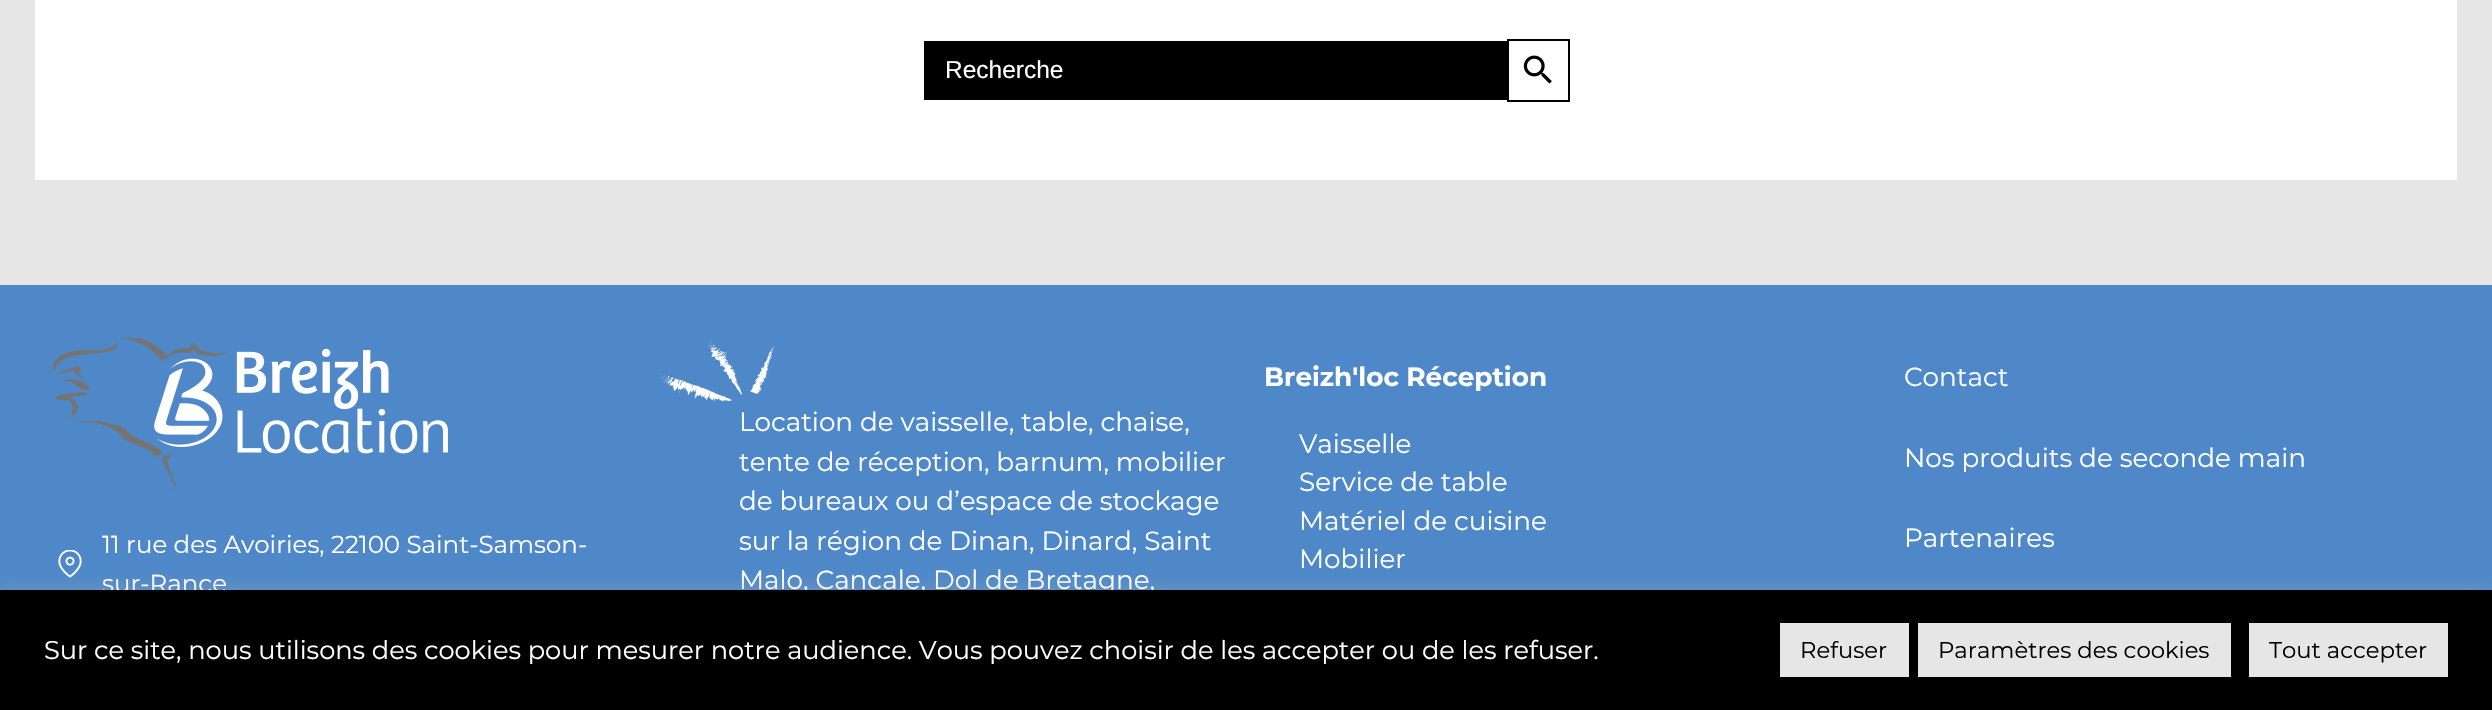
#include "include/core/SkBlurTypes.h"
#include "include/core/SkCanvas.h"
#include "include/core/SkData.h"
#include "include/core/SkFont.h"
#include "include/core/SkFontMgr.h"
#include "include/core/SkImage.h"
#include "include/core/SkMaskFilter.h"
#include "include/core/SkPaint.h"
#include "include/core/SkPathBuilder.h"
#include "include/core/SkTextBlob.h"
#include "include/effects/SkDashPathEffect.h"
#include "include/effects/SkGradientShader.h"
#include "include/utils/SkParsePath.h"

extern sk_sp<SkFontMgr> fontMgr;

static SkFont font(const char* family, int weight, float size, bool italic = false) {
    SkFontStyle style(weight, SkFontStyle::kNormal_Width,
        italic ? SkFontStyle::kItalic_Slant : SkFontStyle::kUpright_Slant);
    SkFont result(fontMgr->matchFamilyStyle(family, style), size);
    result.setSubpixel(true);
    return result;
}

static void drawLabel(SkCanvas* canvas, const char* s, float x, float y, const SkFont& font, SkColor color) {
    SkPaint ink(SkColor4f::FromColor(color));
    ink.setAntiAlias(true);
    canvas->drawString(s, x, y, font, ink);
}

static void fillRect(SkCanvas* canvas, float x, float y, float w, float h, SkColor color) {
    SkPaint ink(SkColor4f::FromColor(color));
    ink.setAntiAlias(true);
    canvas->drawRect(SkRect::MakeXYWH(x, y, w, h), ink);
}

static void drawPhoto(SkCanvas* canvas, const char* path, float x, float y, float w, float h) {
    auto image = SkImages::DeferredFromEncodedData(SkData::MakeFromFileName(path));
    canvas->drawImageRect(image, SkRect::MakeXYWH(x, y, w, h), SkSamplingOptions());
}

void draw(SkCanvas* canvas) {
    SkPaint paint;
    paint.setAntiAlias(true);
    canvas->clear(0xFFE6E6E6);
    fillRect(canvas, 35, 0, 2422, 180, 0xFFFFFFFF);
    fillRect(canvas, 924, 41, 583, 59, 0xFF000000);
    SkFont font1 = font("Liberation Sans", 400, 24.5f);
    drawLabel(canvas, "Recherche", 945, 78, font1, 0xFFFFFFFF);
    paint.setStroke(true);
    paint.setStrokeWidth(2);
    paint.setColor(0xFF000000);
    canvas->drawRect(SkRect::MakeXYWH(1508, 40, 61, 61), paint);
    drawPhoto(canvas, "assets/img1.png", 1523, 55, 29, 29);
    fillRect(canvas, 0, 285, 2492, 305, 0xFF4E88C8);
    drawPhoto(canvas, "assets/img2.png", 53, 338, 395, 152);
    drawPhoto(canvas, "assets/img3.png", 58, 550, 24, 28);
    SkFont font2 = font("Montserrat", 400, 24.5f);
    drawLabel(canvas, "11 rue des Avoiries, 22100 Saint-Samson-", 102, 553, font2, 0xFFFFFFFF);
    drawLabel(canvas, "sur-Rance", 102, 592, font2, 0xFFFFFFFF);
    drawPhoto(canvas, "assets/img4.png", 659, 339, 115, 63);
    SkFont font3 = font("Montserrat", 400, 26.25f);
    drawLabel(canvas, "Location de vaisselle, table, chaise,", 739, 431, font3, 0xFFFFFFFF);
    drawLabel(canvas, "tente de réception, barnum, mobilier", 739, 471, font3, 0xFFFFFFFF);
    drawLabel(canvas, "de bureaux ou d’espace de stockage", 739, 510, font3, 0xFFFFFFFF);
    drawLabel(canvas, "sur la région de Dinan, Dinard, Saint", 739, 550, font3, 0xFFFFFFFF);
    drawLabel(canvas, "Malo, Cancale, Dol de Bretagne,", 739, 589, font3, 0xFFFFFFFF);
    SkFont font4 = font("Montserrat", 700, 26.25f);
    drawLabel(canvas, "Breizh'loc Réception", 1264, 386, font4, 0xFFFFFFFF);
    drawLabel(canvas, "Vaisselle", 1299, 453, font3, 0xFFFFFFFF);
    drawLabel(canvas, "Service de table", 1299, 491, font3, 0xFFFFFFFF);
    drawLabel(canvas, "Matériel de cuisine", 1299, 530, font3, 0xFFFFFFFF);
    drawLabel(canvas, "Mobilier", 1299, 568, font3, 0xFFFFFFFF);
    drawLabel(canvas, "Contact", 1904, 386, font3, 0xFFFFFFFF);
    drawLabel(canvas, "Nos produits de seconde main", 1904, 467, font3, 0xFFFFFFFF);
    drawLabel(canvas, "Partenaires", 1904, 547, font3, 0xFFFFFFFF);
    paint.setStroke(false);
    paint.setColor(0x4DACABAB);
    paint.setMaskFilter(SkMaskFilter::MakeBlur(kNormal_SkBlurStyle, 9));
    canvas->drawRect(SkRect::MakeXYWH(0, 588, 2492, 121), paint);
    paint.setMaskFilter(nullptr);
    fillRect(canvas, 0, 590, 2492, 120, 0xFF000000);
    SkFont font5 = font("Montserrat", 400, 25.67f);
    drawLabel(canvas, "Sur ce site, nous utilisons des cookies pour mesurer notre audience. Vous pouvez choisir de les accepter ou de les refuser.", 44, 659, font5, 0xFFFFFFFF);
    fillRect(canvas, 1780, 623, 129, 54, 0xFFE6E6E6);
    SkFont font6 = font("Montserrat", 400, 22.75f);
    drawLabel(canvas, "Refuser", 1800, 658, font6, 0xFF000000);
    fillRect(canvas, 1918, 623, 313, 54, 0xFFE6E6E6);
    drawLabel(canvas, "Paramètres des cookies", 1938, 658, font6, 0xFF000000);
    fillRect(canvas, 2249, 623, 199, 54, 0xFFE6E6E6);
    drawLabel(canvas, "Tout accepter", 2269, 658, font6, 0xFF000000);
}
